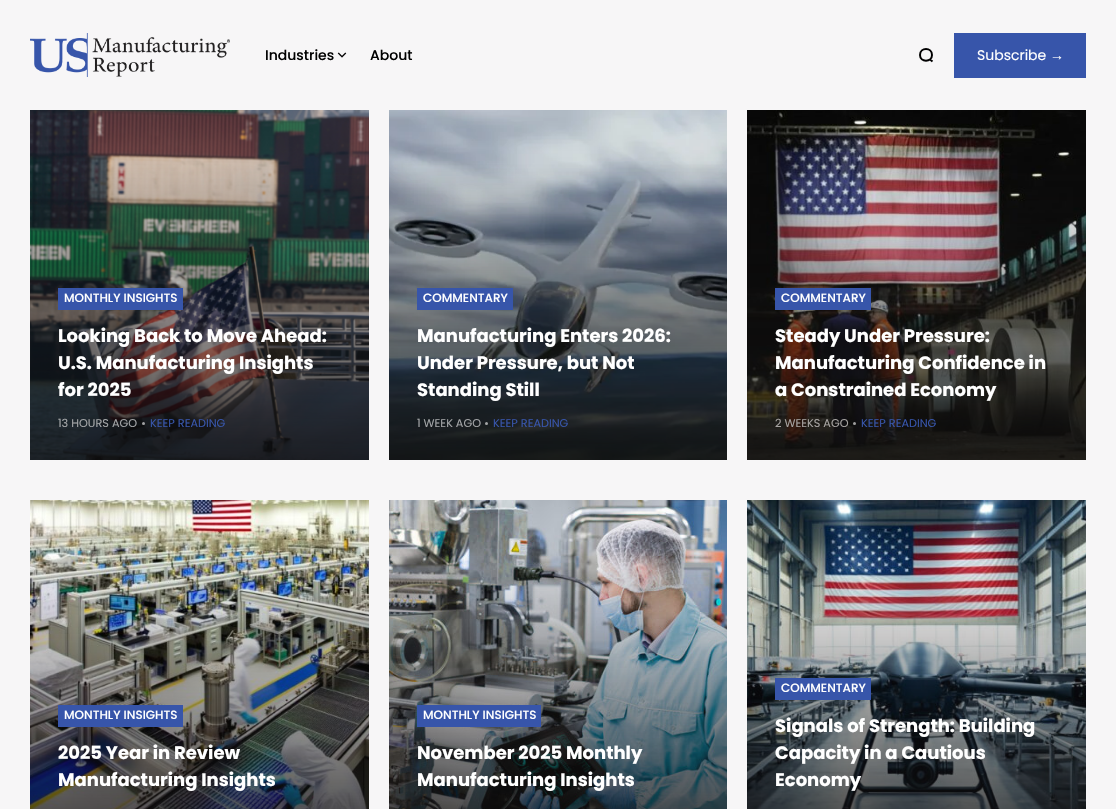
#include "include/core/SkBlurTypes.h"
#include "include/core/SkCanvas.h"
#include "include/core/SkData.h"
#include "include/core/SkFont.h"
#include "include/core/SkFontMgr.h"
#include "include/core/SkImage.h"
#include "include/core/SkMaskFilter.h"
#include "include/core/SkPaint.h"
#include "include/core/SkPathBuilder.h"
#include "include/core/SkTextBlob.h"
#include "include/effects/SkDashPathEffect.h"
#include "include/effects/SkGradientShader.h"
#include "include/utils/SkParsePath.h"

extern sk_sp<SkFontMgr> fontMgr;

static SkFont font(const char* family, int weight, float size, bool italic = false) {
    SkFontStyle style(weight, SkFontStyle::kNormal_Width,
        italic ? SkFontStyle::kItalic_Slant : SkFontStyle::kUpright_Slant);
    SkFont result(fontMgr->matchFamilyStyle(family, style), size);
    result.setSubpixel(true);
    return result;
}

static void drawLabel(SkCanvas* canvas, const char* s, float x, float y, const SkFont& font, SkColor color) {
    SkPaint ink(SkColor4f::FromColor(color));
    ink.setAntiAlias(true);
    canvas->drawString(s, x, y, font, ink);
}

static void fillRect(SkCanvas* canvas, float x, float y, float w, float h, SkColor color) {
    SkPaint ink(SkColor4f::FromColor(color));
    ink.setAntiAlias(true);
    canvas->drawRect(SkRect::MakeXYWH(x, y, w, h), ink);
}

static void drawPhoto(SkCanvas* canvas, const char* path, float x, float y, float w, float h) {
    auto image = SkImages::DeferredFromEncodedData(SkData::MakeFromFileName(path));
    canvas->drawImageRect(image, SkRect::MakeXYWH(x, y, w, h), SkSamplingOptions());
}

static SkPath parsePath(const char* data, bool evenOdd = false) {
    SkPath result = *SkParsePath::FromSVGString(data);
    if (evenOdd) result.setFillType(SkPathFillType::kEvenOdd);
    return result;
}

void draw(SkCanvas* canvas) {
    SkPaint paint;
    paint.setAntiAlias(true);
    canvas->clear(0xFFF7F6F7);
    drawPhoto(canvas, "assets/img1.png", 30, 33, 200, 44);
    SkFont font1 = font("Poppins", 500, 14);
    drawLabel(canvas, "Industries", 265, 60, font1, 0xFF000000);
    drawPhoto(canvas, "assets/img2.png", 337, 52, 10, 6);
    drawLabel(canvas, "About", 370, 60, font1, 0xFF000000);
    paint.setStroke(true);
    paint.setStrokeWidth(2);
    paint.setColor(0xFF000000);
    canvas->drawPath(parsePath("M920 55C920 62.5 932 62.5 932 55C932 47 920 47 920 55M930 59.5L932.5 61.5"), paint);
    fillRect(canvas, 954, 33, 132, 45, 0xFF3755AA);
    SkFont font2 = font("Poppins", 400, 14);
    drawLabel(canvas, "Subscribe", 977, 60, font2, 0xFFFFFFFF);
    SkFont font3 = font("Liberation Serif", 400, 14);
    drawLabel(canvas, "→", 1050, 60, font3, 0xFFFFFFFF);
    drawPhoto(canvas, "assets/img3.png", 30, 110, 339, 350);
    fillRect(canvas, 58, 288, 125, 22, 0xFF3755AA);
    SkFont font4 = font("Poppins", 500, 12);
    drawLabel(canvas, "MONTHLY INSIGHTS", 64, 302, font4, 0xFFFFFFFF);
    SkFont font5 = font("Poppins", 700, 18);
    drawLabel(canvas, "Looking Back to Move Ahead:", 58, 342, font5, 0xFFFFFFFF);
    drawLabel(canvas, "U.S. Manufacturing Insights", 58, 369, font5, 0xFFFFFFFF);
    drawLabel(canvas, "for 2025", 58, 396, font5, 0xFFFFFFFF);
    SkFont font6 = font("Poppins", 400, 11.25f);
    drawLabel(canvas, "13 HOURS AGO", 58, 427, font6, 0xFFA3A5A7);
    paint.setStroke(false);
    paint.setColor(0x99FFFFFF);
    canvas->drawCircle(143.5f, 423.5f, 1.5f, paint);
    drawLabel(canvas, "KEEP READING", 150, 427, font6, 0xFF3755AA);
    drawPhoto(canvas, "assets/img4.png", 389, 110, 338, 350);
    fillRect(canvas, 417, 288, 96, 22, 0xFF3755AA);
    drawLabel(canvas, "COMMENTARY", 423, 302, font4, 0xFFFFFFFF);
    drawLabel(canvas, "Manufacturing Enters 2026:", 417, 342, font5, 0xFFFFFFFF);
    drawLabel(canvas, "Under Pressure, but Not", 417, 369, font5, 0xFFFFFFFF);
    drawLabel(canvas, "Standing Still", 417, 396, font5, 0xFFFFFFFF);
    drawLabel(canvas, "1 WEEK AGO", 417, 427, font6, 0xFFA3A5A7);
    paint.setColor(0xFFA3A5A6);
    canvas->drawCircle(486.5f, 423.5f, 1.5f, paint);
    drawLabel(canvas, "KEEP READING", 493, 427, font6, 0xFF3755AA);
    drawPhoto(canvas, "assets/img5.png", 747, 110, 339, 350);
    fillRect(canvas, 775, 288, 96, 22, 0xFF3755AA);
    drawLabel(canvas, "COMMENTARY", 781, 302, font4, 0xFFFFFFFF);
    drawLabel(canvas, "Steady Under Pressure:", 775, 342, font5, 0xFFFFFFFF);
    drawLabel(canvas, "Manufacturing Confidence in", 775, 369, font5, 0xFFFFFFFF);
    drawLabel(canvas, "a Constrained Economy", 775, 396, font5, 0xFFFFFFFF);
    drawLabel(canvas, "2 WEEKS AGO", 775, 427, font6, 0xFFA6A3A1);
    paint.setColor(0xFF9F9F9F);
    canvas->drawCircle(854.5f, 423.5f, 1.5f, paint);
    drawLabel(canvas, "KEEP READING", 861, 427, font6, 0xFF3755AA);
    drawPhoto(canvas, "assets/img6.png", 30, 500, 339, 309);
    fillRect(canvas, 58, 705, 125, 22, 0xFF3755AA);
    drawLabel(canvas, "MONTHLY INSIGHTS", 64, 719, font4, 0xFFFFFFFF);
    drawLabel(canvas, "2025 Year in Review", 58, 759, font5, 0xFFFFFFFF);
    drawLabel(canvas, "Manufacturing Insights", 58, 786, font5, 0xFFFFFFFF);
    drawPhoto(canvas, "assets/img7.png", 389, 500, 338, 309);
    fillRect(canvas, 417, 705, 124, 22, 0xFF3755AA);
    drawLabel(canvas, "MONTHLY INSIGHTS", 423, 719, font4, 0xFFFFFFFF);
    drawLabel(canvas, "November 2025 Monthly", 417, 759, font5, 0xFFFFFFFF);
    drawLabel(canvas, "Manufacturing Insights", 417, 786, font5, 0xFFFFFFFF);
    drawPhoto(canvas, "assets/img8.png", 747, 500, 339, 309);
    fillRect(canvas, 775, 678, 96, 22, 0xFF3755AA);
    drawLabel(canvas, "COMMENTARY", 781, 692, font4, 0xFFFFFFFF);
    drawLabel(canvas, "Signals of Strength: Building", 775, 732, font5, 0xFFFFFFFF);
    drawLabel(canvas, "Capacity in a Cautious", 775, 759, font5, 0xFFFFFFFF);
    drawLabel(canvas, "Economy", 775, 786, font5, 0xFFFFFFFF);
}
